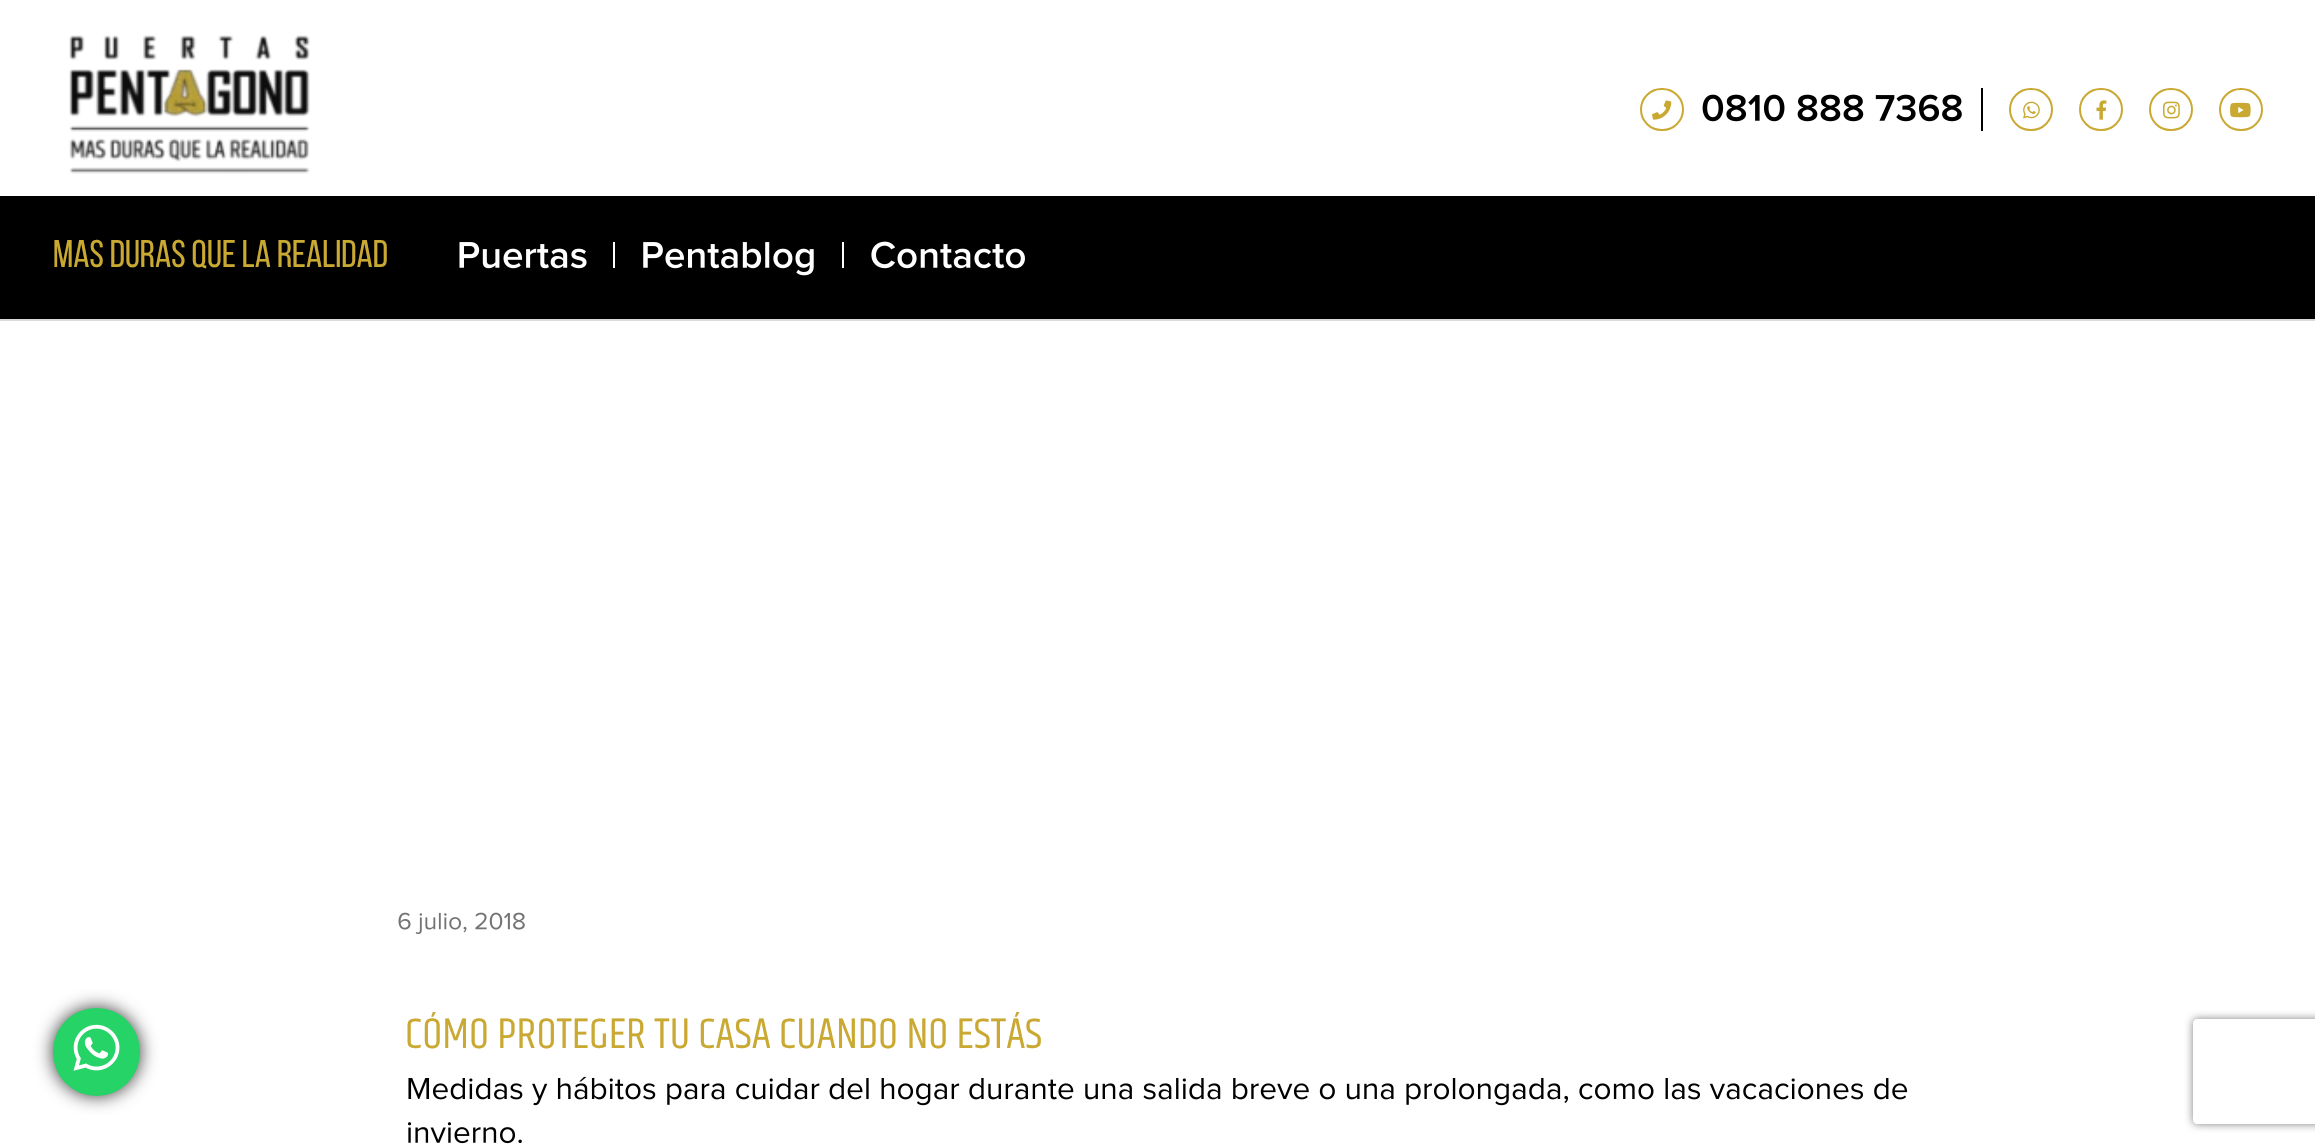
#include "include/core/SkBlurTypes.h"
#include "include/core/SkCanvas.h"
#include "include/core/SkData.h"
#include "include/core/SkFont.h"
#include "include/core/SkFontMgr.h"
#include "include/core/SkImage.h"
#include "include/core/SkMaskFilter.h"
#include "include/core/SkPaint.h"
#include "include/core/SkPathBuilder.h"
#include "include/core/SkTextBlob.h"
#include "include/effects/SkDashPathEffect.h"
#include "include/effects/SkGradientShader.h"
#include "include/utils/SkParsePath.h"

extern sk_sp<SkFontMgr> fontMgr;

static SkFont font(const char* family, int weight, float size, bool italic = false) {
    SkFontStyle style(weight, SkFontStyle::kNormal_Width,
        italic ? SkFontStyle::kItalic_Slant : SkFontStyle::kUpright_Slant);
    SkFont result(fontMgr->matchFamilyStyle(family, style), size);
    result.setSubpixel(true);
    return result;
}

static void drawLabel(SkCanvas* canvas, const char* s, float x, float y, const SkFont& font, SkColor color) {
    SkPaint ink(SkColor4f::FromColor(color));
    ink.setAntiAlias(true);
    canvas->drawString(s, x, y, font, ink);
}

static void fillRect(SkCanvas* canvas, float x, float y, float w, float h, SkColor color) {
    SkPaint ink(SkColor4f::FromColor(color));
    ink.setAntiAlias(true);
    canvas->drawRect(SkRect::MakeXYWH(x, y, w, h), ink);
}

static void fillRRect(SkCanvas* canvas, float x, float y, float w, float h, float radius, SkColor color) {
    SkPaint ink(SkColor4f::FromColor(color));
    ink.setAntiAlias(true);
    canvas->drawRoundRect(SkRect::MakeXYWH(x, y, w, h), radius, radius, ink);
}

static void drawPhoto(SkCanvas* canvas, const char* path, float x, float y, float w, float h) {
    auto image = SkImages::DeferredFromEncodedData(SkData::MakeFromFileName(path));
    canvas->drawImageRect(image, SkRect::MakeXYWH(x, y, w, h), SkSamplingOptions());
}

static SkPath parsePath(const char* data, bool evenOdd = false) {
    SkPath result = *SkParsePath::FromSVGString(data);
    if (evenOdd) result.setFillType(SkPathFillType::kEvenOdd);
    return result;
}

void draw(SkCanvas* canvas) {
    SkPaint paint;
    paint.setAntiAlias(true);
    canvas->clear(0xFFFFFFFF);
    drawPhoto(canvas, "assets/img1.png", 69, 35, 241, 139);
    fillRect(canvas, 1981, 88, 2, 43, 0xFF000000);
    paint.setStroke(true);
    paint.setStrokeWidth(2);
    paint.setColor(0xFFCAA933);
    canvas->drawRoundRect(SkRect::MakeXYWH(1641, 89, 42, 41), 20.5f, 20.5f, paint);
    drawPhoto(canvas, "assets/img2.png", 1652, 100, 20, 20);
    drawPhoto(canvas, "assets/img3.png", 1702, 94, 260, 28);
    canvas->drawRoundRect(SkRect::MakeXYWH(2010, 89, 42, 41), 20.5f, 20.5f, paint);
    drawPhoto(canvas, "assets/img4.png", 2023, 101, 17, 18);
    canvas->drawRoundRect(SkRect::MakeXYWH(2080, 89, 42, 41), 20.5f, 20.5f, paint);
    drawPhoto(canvas, "assets/img5.png", 2096, 100, 11, 20);
    canvas->drawRoundRect(SkRect::MakeXYWH(2150, 89, 42, 41), 20.5f, 20.5f, paint);
    drawPhoto(canvas, "assets/img6.png", 2163, 101, 17, 18);
    canvas->drawRoundRect(SkRect::MakeXYWH(2220, 89, 42, 41), 20.5f, 20.5f, paint);
    drawPhoto(canvas, "assets/img7.png", 2230, 102, 21, 16);
    fillRect(canvas, 0, 196, 2315, 123, 0xFF000000);
    SkFont font1 = font("Bebas Neue", 400, 38.5f);
    drawLabel(canvas, "MAS DURAS QUE LA REALIDAD", 53, 267, font1, 0xFFCAA933);
    drawPhoto(canvas, "assets/img8.png", 459, 242, 128, 27);
    fillRect(canvas, 613, 242, 2, 26, 0xFFFFFFFF);
    drawPhoto(canvas, "assets/img9.png", 643, 242, 171, 34);
    fillRect(canvas, 842, 242, 2, 26, 0xFFFFFFFF);
    drawPhoto(canvas, "assets/img10.png", 871, 241, 154, 28);
    fillRect(canvas, 0, 319, 2315, 2, 0xFFDADADA);
    drawPhoto(canvas, "assets/img11.png", 398, 912, 127, 22);
    SkFont font2 = font("Khand", 400, 43.75f);
    drawLabel(canvas, "CÓMO PROTEGER TU CASA CUANDO NO ESTÁS", 405, 1048, font2, 0xFFCAA933);
    drawPhoto(canvas, "assets/img12.png", 408, 1076, 1500, 30);
    drawPhoto(canvas, "assets/img13.png", 408, 1122, 114, 22);
    paint.setStroke(false);
    paint.setColor(0xFF333333);
    paint.setMaskFilter(SkMaskFilter::MakeBlur(kNormal_SkBlurStyle, 9));
    canvas->drawRoundRect(SkRect::MakeXYWH(53, 1008, 87, 88), 43.5f, 43.5f, paint);
    paint.setMaskFilter(nullptr);
    fillRRect(canvas, 53, 1008, 87, 88, 43.5f, 0xFF25D366);
    drawPhoto(canvas, "assets/img14.png", 73, 1024, 47, 47);
    canvas->save();
    canvas->clipPath(parsePath("M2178 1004H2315V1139H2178ZM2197 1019H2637C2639 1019 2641 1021 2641 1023V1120C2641 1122 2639 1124 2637 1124H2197C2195 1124 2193 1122 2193 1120V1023C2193 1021 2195 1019 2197 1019Z", true), true);
    paint.setColor(0xFF808080);
    paint.setMaskFilter(SkMaskFilter::MakeBlur(kNormal_SkBlurStyle, 4.5f));
    canvas->drawRoundRect(SkRect::MakeXYWH(2193, 1019, 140, 105), 4, 4, paint);
    paint.setMaskFilter(nullptr);
    canvas->restore();
}
